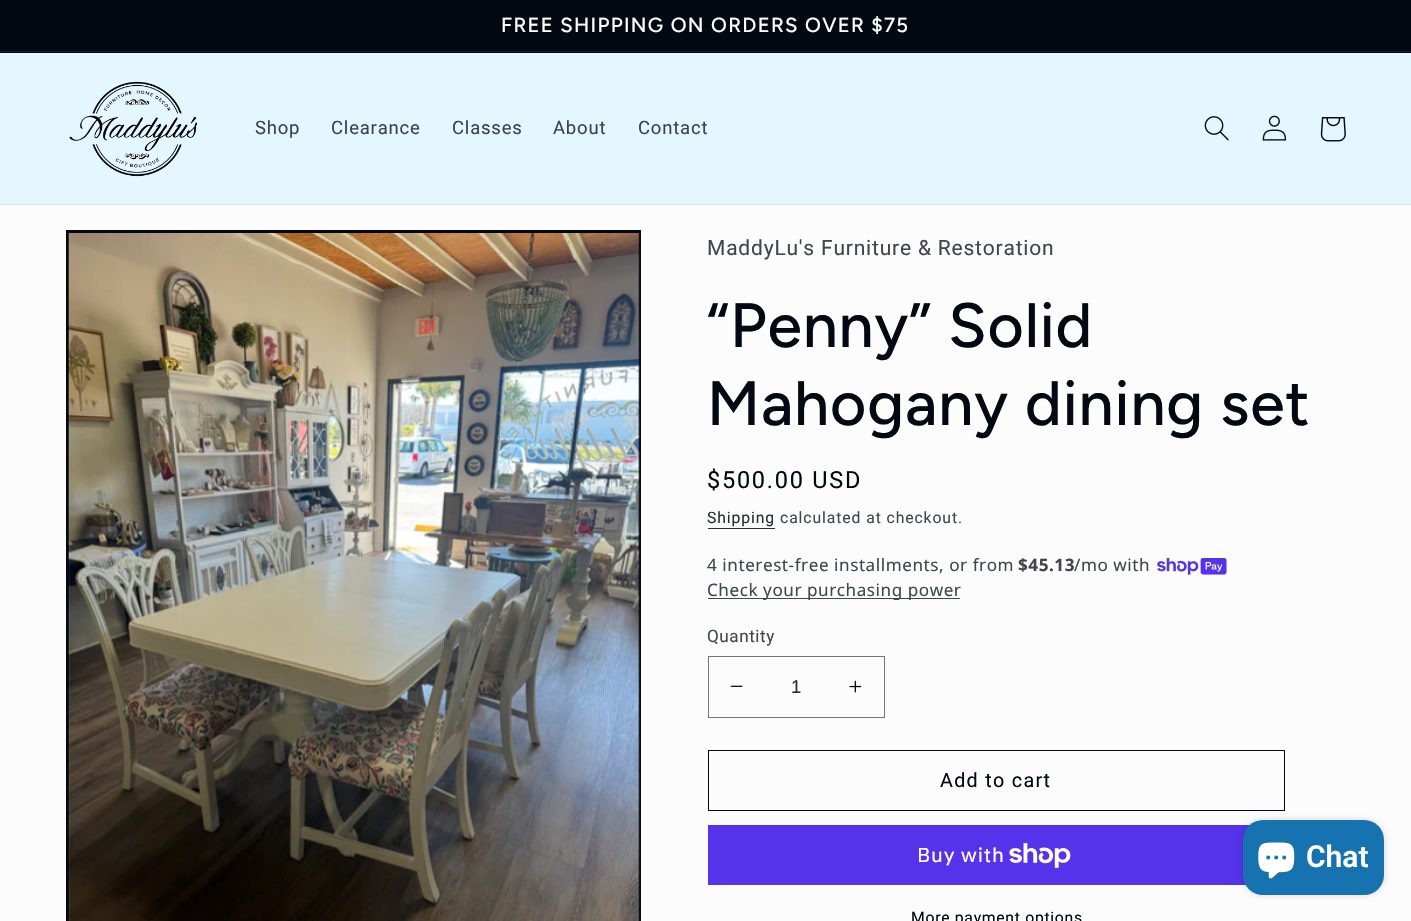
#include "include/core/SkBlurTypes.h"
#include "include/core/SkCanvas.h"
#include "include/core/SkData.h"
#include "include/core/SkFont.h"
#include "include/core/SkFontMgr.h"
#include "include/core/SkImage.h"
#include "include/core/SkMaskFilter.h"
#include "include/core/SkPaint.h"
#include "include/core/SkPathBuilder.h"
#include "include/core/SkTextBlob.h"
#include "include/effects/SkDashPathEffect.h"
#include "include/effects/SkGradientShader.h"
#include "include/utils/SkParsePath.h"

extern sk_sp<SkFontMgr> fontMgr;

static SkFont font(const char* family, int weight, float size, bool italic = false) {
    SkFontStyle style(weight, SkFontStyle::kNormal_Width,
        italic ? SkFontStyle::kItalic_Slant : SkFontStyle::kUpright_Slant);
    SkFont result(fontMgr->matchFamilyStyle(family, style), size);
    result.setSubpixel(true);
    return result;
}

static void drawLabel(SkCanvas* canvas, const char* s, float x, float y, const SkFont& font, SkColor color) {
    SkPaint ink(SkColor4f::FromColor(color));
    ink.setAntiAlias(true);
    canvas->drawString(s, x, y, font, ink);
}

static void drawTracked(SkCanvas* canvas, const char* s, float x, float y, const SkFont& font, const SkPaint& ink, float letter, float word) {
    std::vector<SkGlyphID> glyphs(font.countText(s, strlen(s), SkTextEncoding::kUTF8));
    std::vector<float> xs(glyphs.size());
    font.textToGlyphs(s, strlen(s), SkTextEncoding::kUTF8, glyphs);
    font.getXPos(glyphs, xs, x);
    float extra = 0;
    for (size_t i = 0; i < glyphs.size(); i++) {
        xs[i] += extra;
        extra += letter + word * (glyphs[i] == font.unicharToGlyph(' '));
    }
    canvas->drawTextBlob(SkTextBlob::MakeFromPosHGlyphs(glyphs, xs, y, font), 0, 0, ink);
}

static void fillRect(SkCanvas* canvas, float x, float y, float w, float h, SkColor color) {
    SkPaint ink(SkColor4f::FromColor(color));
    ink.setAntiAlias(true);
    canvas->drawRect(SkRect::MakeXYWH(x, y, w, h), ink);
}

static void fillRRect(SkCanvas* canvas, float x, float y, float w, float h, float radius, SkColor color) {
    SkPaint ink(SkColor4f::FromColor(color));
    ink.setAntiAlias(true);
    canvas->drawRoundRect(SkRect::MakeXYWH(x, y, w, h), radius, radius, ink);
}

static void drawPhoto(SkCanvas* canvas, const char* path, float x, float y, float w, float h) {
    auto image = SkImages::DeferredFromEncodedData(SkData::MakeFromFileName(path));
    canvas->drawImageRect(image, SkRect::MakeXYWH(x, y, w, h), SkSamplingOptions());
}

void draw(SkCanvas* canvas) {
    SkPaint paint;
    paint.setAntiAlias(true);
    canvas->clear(0xFFFCFCFC);
    fillRect(canvas, 0, 0, 1411, 53, 0xFF020912);
    fillRect(canvas, 0, 51, 1411, 1, 0xFF161C25);
    SkFont font1 = font("Figtree", 500, 20.3f);
    paint.setColor(0xFFFFFFFF);
    drawTracked(canvas, "FREE SHIPPING ON ORDERS OVER $75", 501, 32, font1, paint, 1.3f, 0);
    fillRect(canvas, 0, 53, 1411, 151, 0xFFE4F6FF);
    fillRect(canvas, 0, 204, 1411, 1, 0xFFD2E3EC);
    drawPhoto(canvas, "assets/img1.png", 69, 81, 129, 96);
    SkFont font2 = font("Roboto", 400, 18.5f);
    paint.setColor(0xFF3B444D);
    drawTracked(canvas, "Shop", 255, 134, font2, paint, 0.8f, 0);
    drawTracked(canvas, "Clearance", 331, 134, font2, paint, 0.8f, 0);
    drawTracked(canvas, "Classes", 452, 134, font2, paint, 0.8f, 0);
    drawTracked(canvas, "About", 553, 134, font2, paint, 0.8f, 0);
    drawTracked(canvas, "Contact", 638, 134, font2, paint, 0.8f, 0);
    drawPhoto(canvas, "assets/img2.png", 1204, 116, 25, 25);
    drawPhoto(canvas, "assets/img3.png", 1262, 115, 25, 26);
    drawPhoto(canvas, "assets/img4.png", 1320, 117, 26, 25);
    paint.setStroke(true);
    paint.setStrokeWidth(3);
    paint.setColor(0xFF020912);
    canvas->drawRect(SkRect::MakeXYWH(67.5f, 231.5f, 572, 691), paint);
    drawPhoto(canvas, "assets/img5.png", 68, 233, 572, 688);
    SkFont font3 = font("Roboto", 400, 21);
    paint.setStroke(false);
    paint.setColor(0xFF41464D);
    drawTracked(canvas, "MaddyLu's Furniture & Restoration", 707, 255, font3, paint, 0.8f, 0);
    SkFont font4 = font("Figtree", 500, 62.5f);
    paint.setColor(0xFF020912);
    drawTracked(canvas, "“Penny” Solid", 707, 347, font4, paint, 0.9f, 0);
    drawTracked(canvas, "Mahogany dining set", 707, 425, font4, paint, 0.9f, 0);
    SkFont font5 = font("Roboto", 400, 23.5f);
    drawTracked(canvas, "$500.00 USD", 707, 488, font5, paint, 1.75f, 0);
    SkFont font6 = font("Roboto", 400, 15.75f);
    paint.setColor(0xFF282D35);
    drawTracked(canvas, "Shipping", 707, 523, font6, paint, 0.9f, 0);
    fillRect(canvas, 708, 528, 67, 1, 0xFF282D35);
    paint.setColor(0xFF41464D);
    drawTracked(canvas, "calculated at checkout.", 780, 523, font6, paint, 0.9f, 0);
    SkFont font7 = font("Noto Sans", 400, 17.1f);
    drawTracked(canvas, "4 interest-free installments, or from", 707, 571, font7, paint, 0.55f, 0);
    SkFont font8 = font("Noto Sans", 700, 17.1f);
    drawTracked(canvas, "$45.13", 1018, 571, font8, paint, 0.55f, 0);
    drawTracked(canvas, "/mo with", 1074, 571, font7, paint, 0.55f, 0);
    drawPhoto(canvas, "assets/img6.png", 1157, 558, 70, 17);
    fillRect(canvas, 708, 598, 252, 1, 0xFF41464D);
    drawTracked(canvas, "Check your purchasing power", 707, 596, font7, paint, 0.55f, 0);
    SkFont font9 = font("Roboto", 400, 17.1f);
    drawTracked(canvas, "Quantity", 707, 642, font9, paint, 0.55f, 0);
    drawPhoto(canvas, "assets/img7.png", 730, 685, 13, 2);
    drawPhoto(canvas, "assets/img8.png", 849, 680, 13, 13);
    paint.setStroke(true);
    paint.setStrokeWidth(1);
    paint.setColor(0xFF72767B);
    canvas->drawRect(SkRect::MakeXYWH(708.5f, 656.5f, 176, 61), paint);
    SkFont font10 = font("Liberation Sans", 400, 18.5f);
    drawLabel(canvas, "1", 791, 693, font10, 0xFF282D35);
    paint.setColor(0xFF020912);
    canvas->drawRect(SkRect::MakeXYWH(708.5f, 750.5f, 576, 60), paint);
    SkFont font11 = font("Roboto", 400, 19.75f);
    paint.setStroke(false);
    drawTracked(canvas, "Add to cart", 940, 787, font11, paint, 1.3f, 0);
    fillRect(canvas, 708, 825, 542, 60, 0xFF5433EB);
    SkFont font12 = font("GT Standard", 400, 20);
    paint.setColor(0xFFFFFFFF);
    drawTracked(canvas, "Buy with", 917, 862, font12, paint, 0.8f, 0);
    drawPhoto(canvas, "assets/img9.png", 1009, 843, 62, 25);
    paint.setColor(0xFF020912);
    drawTracked(canvas, "More payment options", 911, 923, font6, paint, 0.7f, 0);
    paint.setColor(0x26000000);
    paint.setMaskFilter(SkMaskFilter::MakeBlur(kNormal_SkBlurStyle, 3));
    canvas->drawRoundRect(SkRect::MakeXYWH(1243, 820, 141, 75), 20, 20, paint);
    paint.setMaskFilter(nullptr);
    fillRRect(canvas, 1243, 820, 141, 75, 20, 0xFF1773B0);
    drawPhoto(canvas, "assets/img10.png", 1258, 842, 37, 37);
    SkFont font13 = font("Roboto", 600, 30);
    drawLabel(canvas, "Chat", 1306, 867, font13, 0xFFFFFFFF);
}
